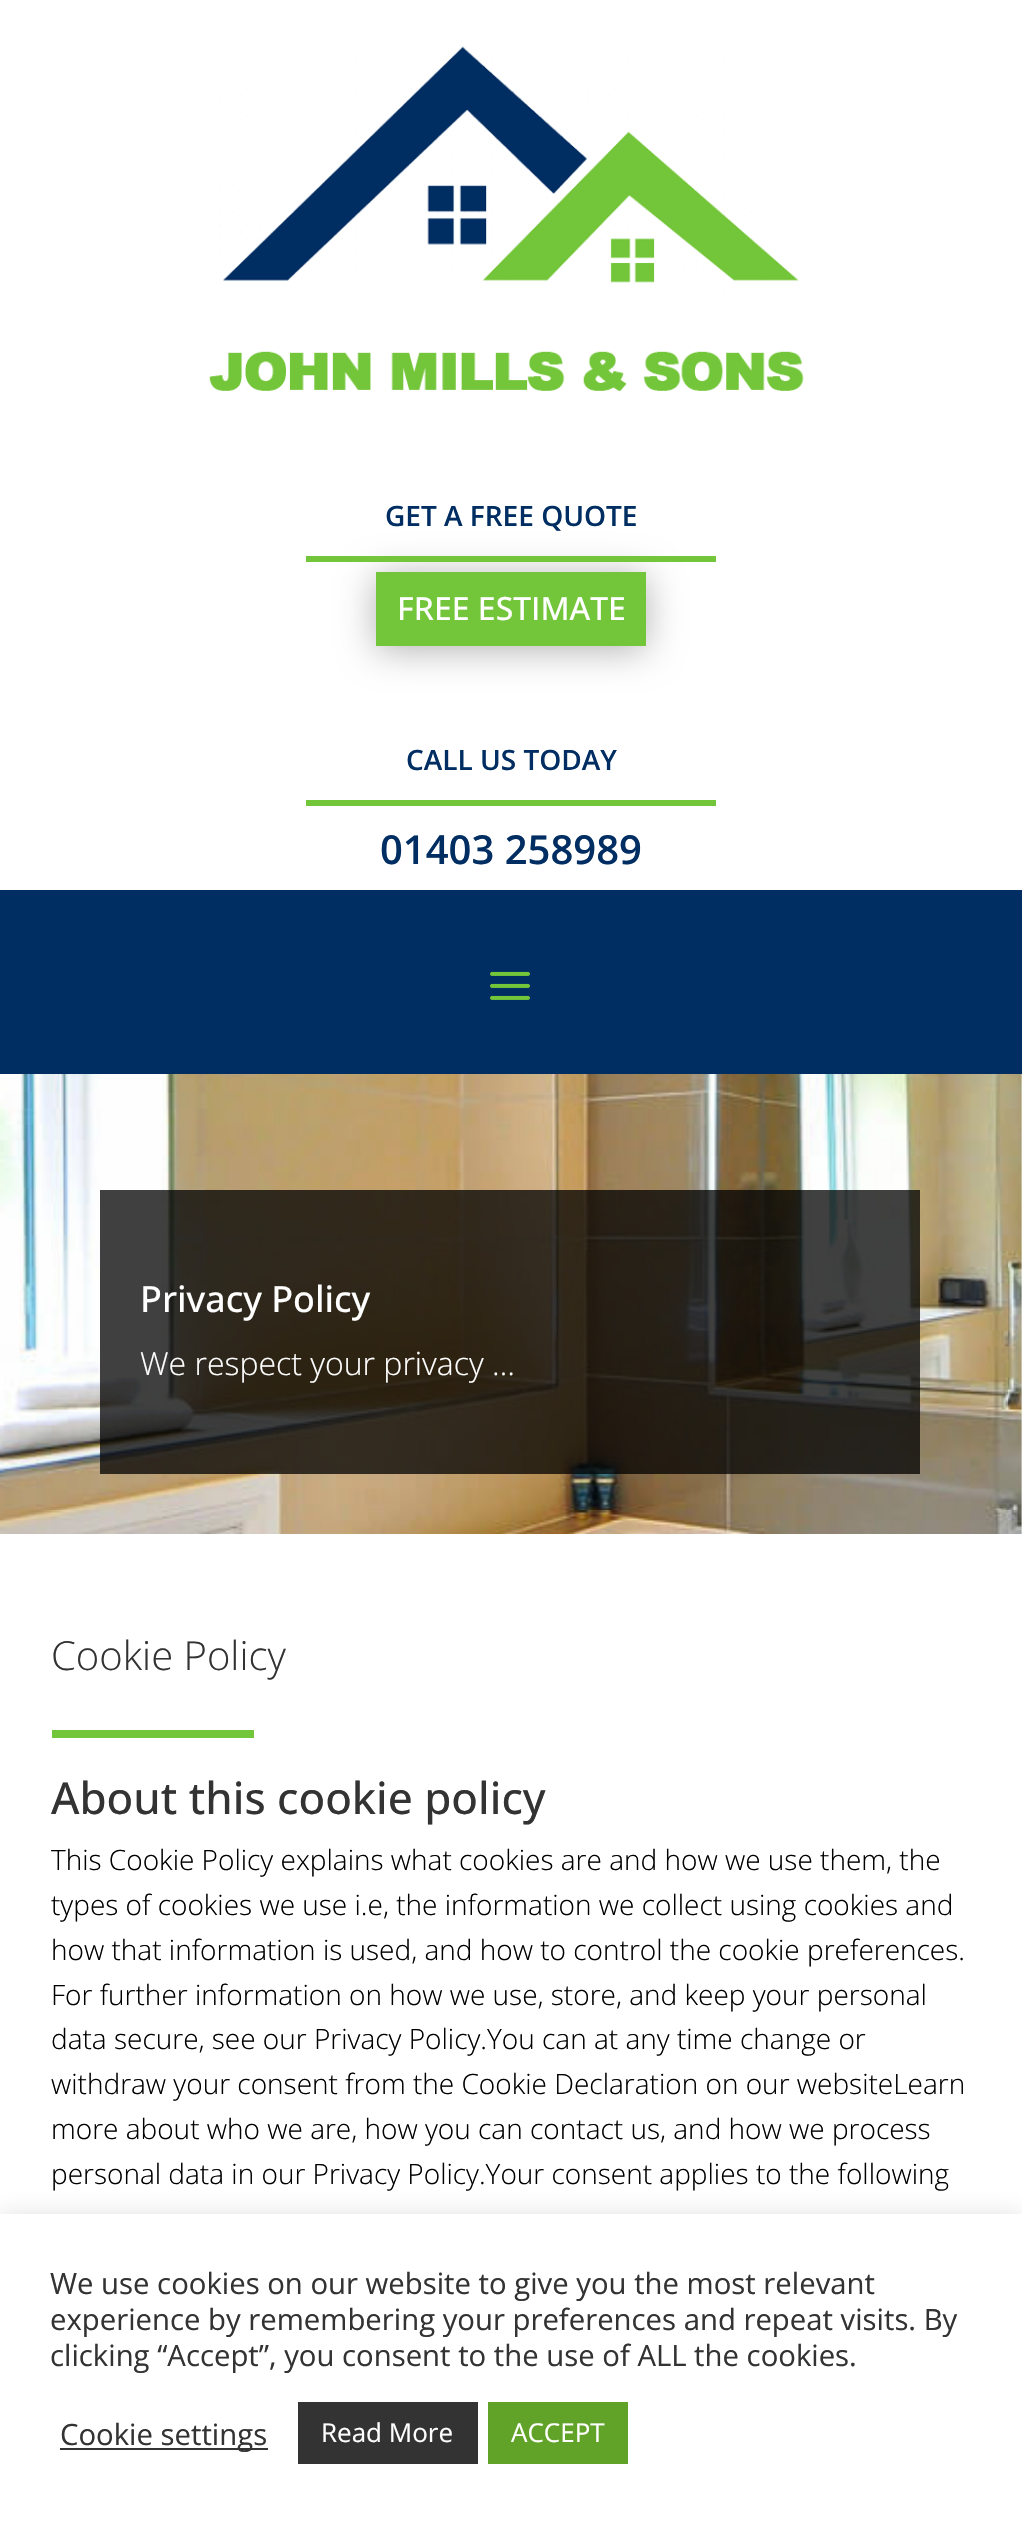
#include "include/core/SkBlurTypes.h"
#include "include/core/SkCanvas.h"
#include "include/core/SkData.h"
#include "include/core/SkFont.h"
#include "include/core/SkFontMgr.h"
#include "include/core/SkImage.h"
#include "include/core/SkMaskFilter.h"
#include "include/core/SkPaint.h"
#include "include/core/SkPathBuilder.h"
#include "include/core/SkTextBlob.h"
#include "include/effects/SkDashPathEffect.h"
#include "include/effects/SkGradientShader.h"
#include "include/utils/SkParsePath.h"

extern sk_sp<SkFontMgr> fontMgr;

static SkFont font(const char* family, int weight, float size, bool italic = false) {
    SkFontStyle style(weight, SkFontStyle::kNormal_Width,
        italic ? SkFontStyle::kItalic_Slant : SkFontStyle::kUpright_Slant);
    SkFont result(fontMgr->matchFamilyStyle(family, style), size);
    result.setSubpixel(true);
    return result;
}

static void drawLabel(SkCanvas* canvas, const char* s, float x, float y, const SkFont& font, SkColor color) {
    SkPaint ink(SkColor4f::FromColor(color));
    ink.setAntiAlias(true);
    canvas->drawString(s, x, y, font, ink);
}

static void fillRect(SkCanvas* canvas, float x, float y, float w, float h, SkColor color) {
    SkPaint ink(SkColor4f::FromColor(color));
    ink.setAntiAlias(true);
    canvas->drawRect(SkRect::MakeXYWH(x, y, w, h), ink);
}

static void drawPhoto(SkCanvas* canvas, const char* path, float x, float y, float w, float h) {
    auto image = SkImages::DeferredFromEncodedData(SkData::MakeFromFileName(path));
    canvas->drawImageRect(image, SkRect::MakeXYWH(x, y, w, h), SkSamplingOptions());
}

void draw(SkCanvas* canvas) {
    SkPaint paint;
    paint.setAntiAlias(true);
    canvas->clear(0xFFFFFFFF);
    drawPhoto(canvas, "assets/img1.png", 206, 34, 600, 357);
    SkFont font1 = font("Open Sans", 600, 28);
    drawLabel(canvas, "GET A FREE QUOTE", 385, 526, font1, 0xFF002E62);
    paint.setColor(0x4D000000);
    paint.setMaskFilter(SkMaskFilter::MakeBlur(kNormal_SkBlurStyle, 18));
    canvas->drawRect(SkRect::MakeXYWH(376, 576, 270, 74), paint);
    paint.setMaskFilter(nullptr);
    fillRect(canvas, 306, 556, 410, 6, 0xFF73C539);
    fillRect(canvas, 376, 572, 270, 74, 0xFF73C539);
    SkFont font2 = font("Open Sans", 500, 32);
    drawLabel(canvas, "FREE ESTIMATE", 397, 620, font2, 0xFFFFFFFF);
    drawLabel(canvas, "CALL US TODAY", 406, 770, font1, 0xFF002E62);
    fillRect(canvas, 306, 800, 410, 6, 0xFF73C539);
    SkFont font3 = font("Open Sans", 600, 40);
    drawLabel(canvas, "01403 258989", 380, 864, font3, 0xFF002E62);
    fillRect(canvas, 0, 890, 1022, 184, 0xFF002E62);
    drawPhoto(canvas, "assets/img2.png", 490, 971, 40, 29);
    drawPhoto(canvas, "assets/img3.png", 0, 1074, 1022, 460);
    fillRect(canvas, 100, 1190, 820, 284, 0xBF000000);
    SkFont font4 = font("Open Sans", 500, 36);
    drawLabel(canvas, "Privacy Policy", 140, 1312, font4, 0xFFFFFFFF);
    SkFont font5 = font("Open Sans", 300, 32);
    drawLabel(canvas, "We respect your privacy …", 140, 1375, font5, 0xFFFFFFFF);
    SkFont font6 = font("Open Sans", 300, 40);
    drawLabel(canvas, "Cookie Policy", 51, 1670, font6, 0xFF333333);
    fillRect(canvas, 52, 1730, 202, 8, 0xFF73C539);
    SkFont font7 = font("Open Sans", 500, 44);
    drawLabel(canvas, "About this cookie policy", 51, 1814, font7, 0xFF333333);
    SkFont font8 = font("Open Sans", 300, 28);
    drawLabel(canvas, "This Cookie Policy explains what cookies are and how we use them, the", 51, 1870, font8, 0xFF000000);
    drawLabel(canvas, "types of cookies we use i.e, the information we collect using cookies and", 51, 1915, font8, 0xFF000000);
    drawLabel(canvas, "how that information is used, and how to control the cookie preferences.", 51, 1960, font8, 0xFF000000);
    drawLabel(canvas, "For further information on how we use, store, and keep your personal", 51, 2005, font8, 0xFF000000);
    drawLabel(canvas, "data secure, see our Privacy Policy.You can at any time change or", 51, 2049, font8, 0xFF000000);
    drawLabel(canvas, "withdraw your consent from the Cookie Declaration on our websiteLearn", 51, 2094, font8, 0xFF000000);
    drawLabel(canvas, "more about who we are, how you can contact us, and how we process", 51, 2139, font8, 0xFF000000);
    drawLabel(canvas, "personal data in our Privacy Policy.Your consent applies to the following", 51, 2184, font8, 0xFF000000);
    paint.setColor(0x4DACABAB);
    paint.setMaskFilter(SkMaskFilter::MakeBlur(kNormal_SkBlurStyle, 10));
    canvas->drawRect(SkRect::MakeXYWH(0, 2212, 1022, 310), paint);
    paint.setMaskFilter(nullptr);
    fillRect(canvas, 0, 2214, 1022, 310, 0xFFFFFFFF);
    SkFont font9 = font("Open Sans", 400, 29.3f);
    drawLabel(canvas, "We use cookies on our website to give you the most relevant", 50, 2294, font9, 0xFF333333);
    drawLabel(canvas, "experience by remembering your preferences and repeat visits. By", 50, 2330, font9, 0xFF333333);
    drawLabel(canvas, "clicking “Accept”, you consent to the use of ALL the cookies.", 50, 2366, font9, 0xFF333333);
    fillRect(canvas, 60, 2448, 208, 2, 0xFF333333);
    drawLabel(canvas, "Cookie settings", 60, 2445, font9, 0xFF333333);
    fillRect(canvas, 298, 2402, 180, 62, 0xFF333333);
    SkFont font10 = font("Open Sans", 400, 26);
    drawLabel(canvas, "Read More", 321, 2442, font10, 0xFFFFFFFF);
    fillRect(canvas, 488, 2402, 140, 62, 0xFF61A229);
    drawLabel(canvas, "ACCEPT", 511, 2442, font10, 0xFFFFFFFF);
}
